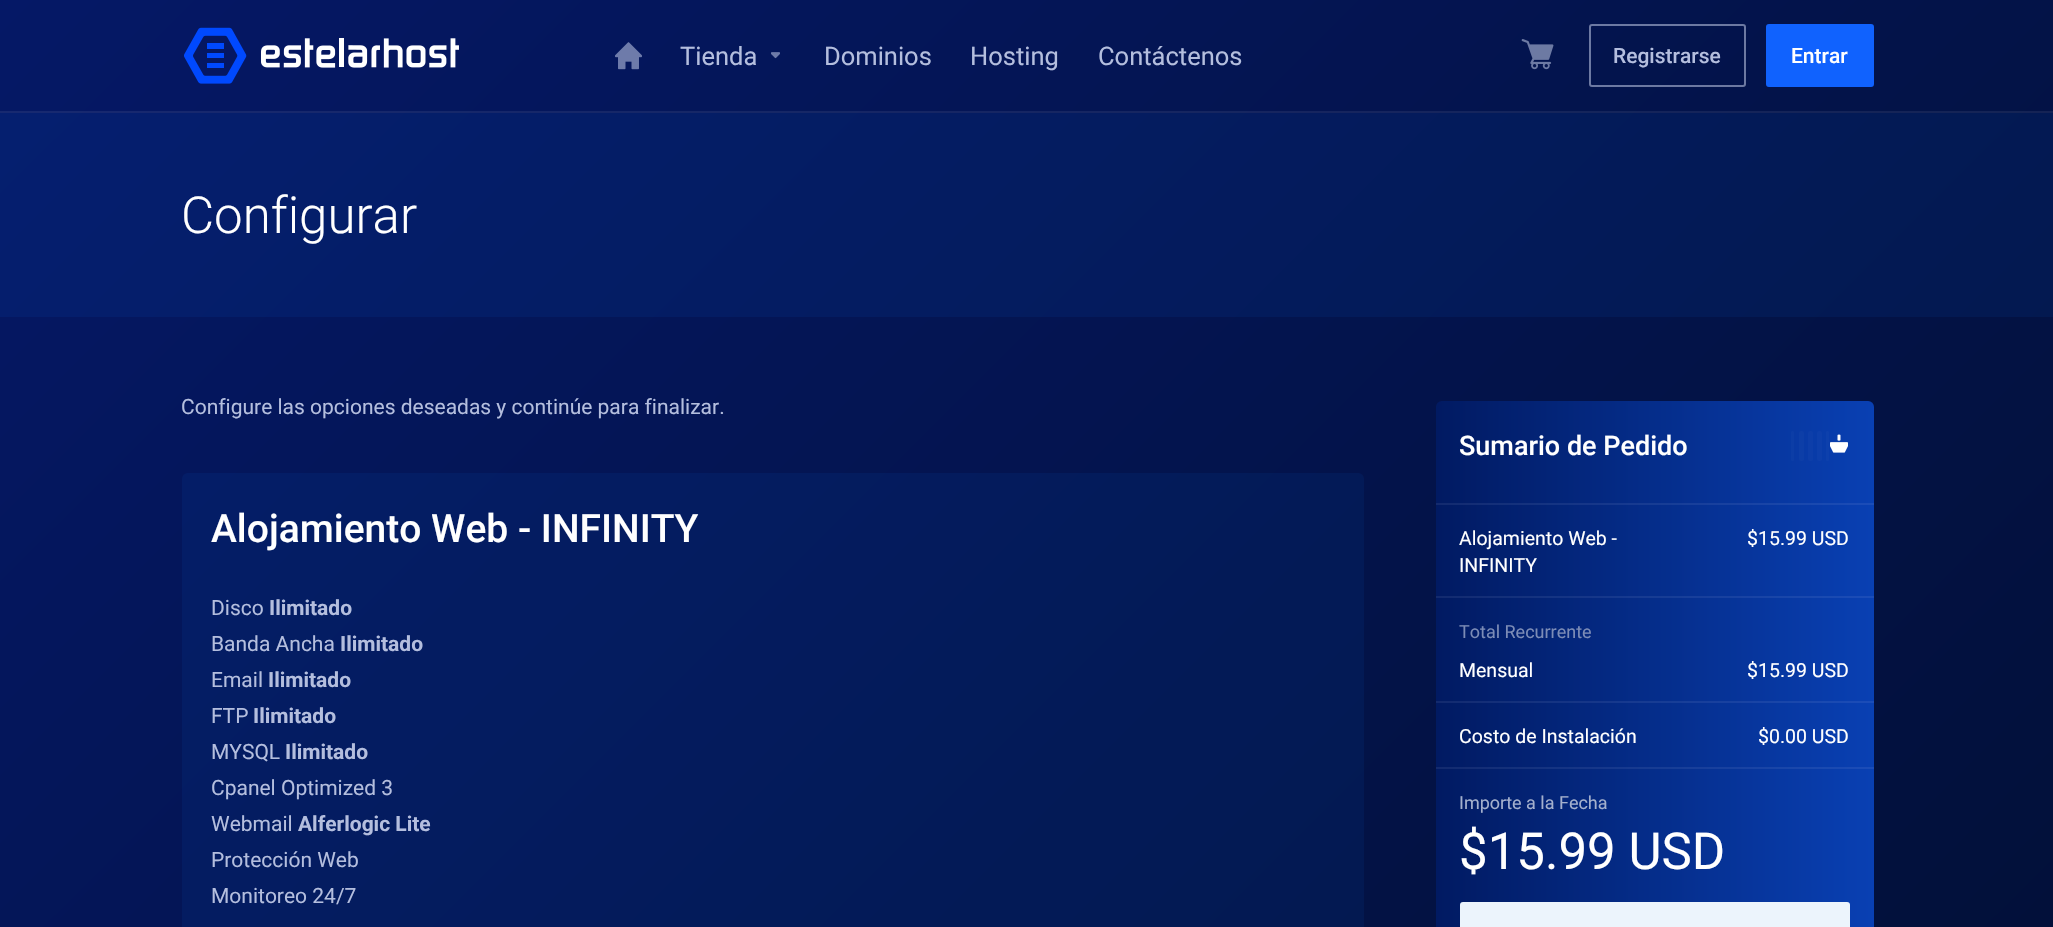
#include "include/core/SkBlurTypes.h"
#include "include/core/SkCanvas.h"
#include "include/core/SkData.h"
#include "include/core/SkFont.h"
#include "include/core/SkFontMgr.h"
#include "include/core/SkImage.h"
#include "include/core/SkMaskFilter.h"
#include "include/core/SkPaint.h"
#include "include/core/SkPathBuilder.h"
#include "include/core/SkTextBlob.h"
#include "include/effects/SkDashPathEffect.h"
#include "include/effects/SkGradientShader.h"
#include "include/utils/SkParsePath.h"

extern sk_sp<SkFontMgr> fontMgr;

static SkFont font(const char* family, int weight, float size, bool italic = false) {
    SkFontStyle style(weight, SkFontStyle::kNormal_Width,
        italic ? SkFontStyle::kItalic_Slant : SkFontStyle::kUpright_Slant);
    SkFont result(fontMgr->matchFamilyStyle(family, style), size);
    result.setSubpixel(true);
    return result;
}

static void drawLabel(SkCanvas* canvas, const char* s, float x, float y, const SkFont& font, SkColor color) {
    SkPaint ink(SkColor4f::FromColor(color));
    ink.setAntiAlias(true);
    canvas->drawString(s, x, y, font, ink);
}

static void fillRect(SkCanvas* canvas, float x, float y, float w, float h, SkColor color) {
    SkPaint ink(SkColor4f::FromColor(color));
    ink.setAntiAlias(true);
    canvas->drawRect(SkRect::MakeXYWH(x, y, w, h), ink);
}

static void fillRRect(SkCanvas* canvas, float x, float y, float w, float h, float radius, SkColor color) {
    SkPaint ink(SkColor4f::FromColor(color));
    ink.setAntiAlias(true);
    canvas->drawRoundRect(SkRect::MakeXYWH(x, y, w, h), radius, radius, ink);
}

static void drawPhoto(SkCanvas* canvas, const char* path, float x, float y, float w, float h) {
    auto image = SkImages::DeferredFromEncodedData(SkData::MakeFromFileName(path));
    canvas->drawImageRect(image, SkRect::MakeXYWH(x, y, w, h), SkSamplingOptions());
}

void draw(SkCanvas* canvas) {
    SkPaint paint;
    paint.setAntiAlias(true);
    canvas->clear(0xFFFFFFFF);
    {
        const SkColor colors[] = {0xFF051866, 0xFF021038};
        const float stops[] = {0, 0.8f};
        const SkPoint ends[] = {{57, -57}, {1997, 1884}};
        paint.setShader(SkGradientShader::MakeLinear(ends, colors, stops, 2, SkTileMode::kClamp));
        paint.setAlpha(255);
    }
    canvas->drawRect(SkRect::MakeXYWH(0, 0, 2053, 927), paint);
    {
        const SkColor colors[] = {0xFF172972, 0xFF142148};
        const float stops[] = {0, 0.8f};
        const SkPoint ends[] = {{57, -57}, {1997, 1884}};
        paint.setShader(SkGradientShader::MakeLinear(ends, colors, stops, 2, SkTileMode::kClamp));
        paint.setAlpha(255);
    }
    canvas->drawRect(SkRect::MakeXYWH(0, 111, 2053, 2), paint);
    {
        const SkColor colors[] = {0xFF051F71, 0xFF021746};
        const float stops[] = {0, 0.8f};
        const SkPoint ends[] = {{57, -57}, {1997, 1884}};
        paint.setShader(SkGradientShader::MakeLinear(ends, colors, stops, 2, SkTileMode::kClamp));
        paint.setAlpha(255);
    }
    canvas->drawRect(SkRect::MakeXYWH(0, 113, 2053, 204), paint);
    drawPhoto(canvas, "assets/img1.png", 184, 27, 275, 57);
    drawPhoto(canvas, "assets/img2.png", 615, 42, 27, 28);
    SkFont font1 = font("Roboto", 400, 25.5f);
    drawLabel(canvas, "Tienda", 680, 65, font1, 0xFFB4BEDE);
    drawPhoto(canvas, "assets/img3.png", 771, 52, 9, 7);
    drawLabel(canvas, "Dominios", 824, 65, font1, 0xFFB4BEDE);
    drawLabel(canvas, "Hosting", 970, 65, font1, 0xFFB4BEDE);
    drawLabel(canvas, "Contáctenos", 1098, 65, font1, 0xFFB4BEDE);
    drawPhoto(canvas, "assets/img4.png", 1521, 39, 33, 31);
    paint.setStroke(true);
    paint.setStrokeWidth(2);
    paint.setShader(nullptr);
    paint.setColor(0x7AE0E8FF);
    canvas->drawRoundRect(SkRect::MakeXYWH(1590, 25, 155, 61), 2, 2, paint);
    SkFont font2 = font("Roboto", 500, 21);
    drawLabel(canvas, "Registrarse", 1613, 63, font2, 0xFFB4BEDE);
    paint.setStroke(false);
    paint.setColor(0xFF1062FE);
    canvas->drawRoundRect(SkRect::MakeXYWH(1767, 25, 106, 61), 2, 2, paint);
    paint.setStroke(true);
    canvas->drawRoundRect(SkRect::MakeXYWH(1767, 25, 106, 61), 2, 2, paint);
    drawLabel(canvas, "Entrar", 1791, 63, font2, 0xFFFFFFFF);
    SkFont font3 = font("Roboto", 300, 51);
    drawLabel(canvas, "Configurar", 181, 233, font3, 0xFFFFFFFF);
    SkFont font4 = font("Roboto", 400, 21);
    drawLabel(canvas, "Configure las opciones deseadas y continúe para finalizar.", 181, 414, font4, 0xFFB4BEDE);
    fillRRect(canvas, 182, 473, 1182, 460, 6, 0x14056CEA);
    SkFont font5 = font("Roboto", 500, 39);
    drawLabel(canvas, "Alojamiento Web - INFINITY", 211, 542, font5, 0xFFFFFFFF);
    drawLabel(canvas, "Disco", 211, 615, font4, 0xFFB4BEDE);
    SkFont font6 = font("Roboto", 700, 21);
    drawLabel(canvas, "Ilimitado", 269, 615, font6, 0xFFB4BEDE);
    drawLabel(canvas, "Banda Ancha", 211, 651, font4, 0xFFB4BEDE);
    drawLabel(canvas, "Ilimitado", 340, 651, font6, 0xFFB4BEDE);
    drawLabel(canvas, "Email", 211, 687, font4, 0xFFB4BEDE);
    drawLabel(canvas, "Ilimitado", 268, 687, font6, 0xFFB4BEDE);
    drawLabel(canvas, "FTP", 211, 723, font4, 0xFFB4BEDE);
    drawLabel(canvas, "Ilimitado", 253, 723, font6, 0xFFB4BEDE);
    drawLabel(canvas, "MYSQL", 211, 759, font4, 0xFFB4BEDE);
    drawLabel(canvas, "Ilimitado", 285, 759, font6, 0xFFB4BEDE);
    drawLabel(canvas, "Cpanel Optimized 3", 211, 795, font4, 0xFFB4BEDE);
    drawLabel(canvas, "Webmail", 211, 831, font4, 0xFFB4BEDE);
    drawLabel(canvas, "Alferlogic Lite", 298, 831, font6, 0xFFB4BEDE);
    drawLabel(canvas, "Protección Web", 211, 867, font4, 0xFFB4BEDE);
    drawLabel(canvas, "Monitoreo 24/7", 211, 903, font4, 0xFFB4BEDE);
    paint.setStroke(false);
    {
        const SkColor colors[] = {0xFF011A62, 0xFF0940B3};
        const float stops[] = {0, 1};
        const SkPoint ends[] = {{1436, 701}, {1874, 701}};
        paint.setShader(SkGradientShader::MakeLinear(ends, colors, stops, 2, SkTileMode::kClamp));
        paint.setAlpha(255);
    }
    canvas->drawRoundRect(SkRect::MakeXYWH(1436, 401, 438, 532), 6, 6, paint);
    SkFont font7 = font("Roboto", 500, 27);
    drawLabel(canvas, "Sumario de Pedido", 1459, 455, font7, 0xFFFFFFFF);
    fillRect(canvas, 1436, 503, 438, 2, 0x14E0E8FF);
    fillRRect(canvas, 1791, 431, 3, 30, 1.5f, 0xFF0C3DA6);
    fillRRect(canvas, 1799, 431, 5, 30, 2.5f, 0xFF0D3EA7);
    fillRRect(canvas, 1808, 431, 5, 30, 2.5f, 0xFF0D3EA9);
    fillRRect(canvas, 1817, 431, 5, 30, 2.5f, 0xFF0D3FAB);
    fillRRect(canvas, 1826, 431, 3, 30, 1.5f, 0xFF0D40AC);
    SkFont font8 = font("Roboto", 400, 19.5f);
    drawLabel(canvas, "Alojamiento Web -", 1459, 545, font8, 0xFFFFFFFF);
    drawLabel(canvas, "INFINITY", 1459, 572, font8, 0xFFFFFFFF);
    drawLabel(canvas, "$15.99 USD", 1747, 545, font8, 0xFFFFFFFF);
    fillRect(canvas, 1436, 596, 438, 2, 0x14E0E8FF);
    SkFont font9 = font("Roboto", 400, 18);
    drawLabel(canvas, "Total Recurrente", 1459, 638, font9, 0xFF7C8CB6);
    drawLabel(canvas, "Mensual", 1459, 677, font8, 0xFFFFFFFF);
    drawLabel(canvas, "$15.99 USD", 1747, 677, font8, 0xFFFFFFFF);
    fillRect(canvas, 1436, 701, 438, 2, 0x14E0E8FF);
    drawLabel(canvas, "Costo de Instalación", 1459, 743, font8, 0xFFFFFFFF);
    drawLabel(canvas, "$0.00 USD", 1758, 743, font8, 0xFFFFFFFF);
    fillRect(canvas, 1436, 767, 438, 2, 0x14E0E8FF);
    drawPhoto(canvas, "assets/img5.png", 1830, 434, 18, 19);
    drawLabel(canvas, "Importe a la Fecha", 1459, 809, font9, 0xFFA4B0CD);
    SkFont font10 = font("Roboto", 400, 51);
    drawLabel(canvas, "$15.99 USD", 1459, 869, font10, 0xFFFFFFFF);
    fillRRect(canvas, 1460, 902, 390, 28, 3, 0xFFECF4FC);
}
